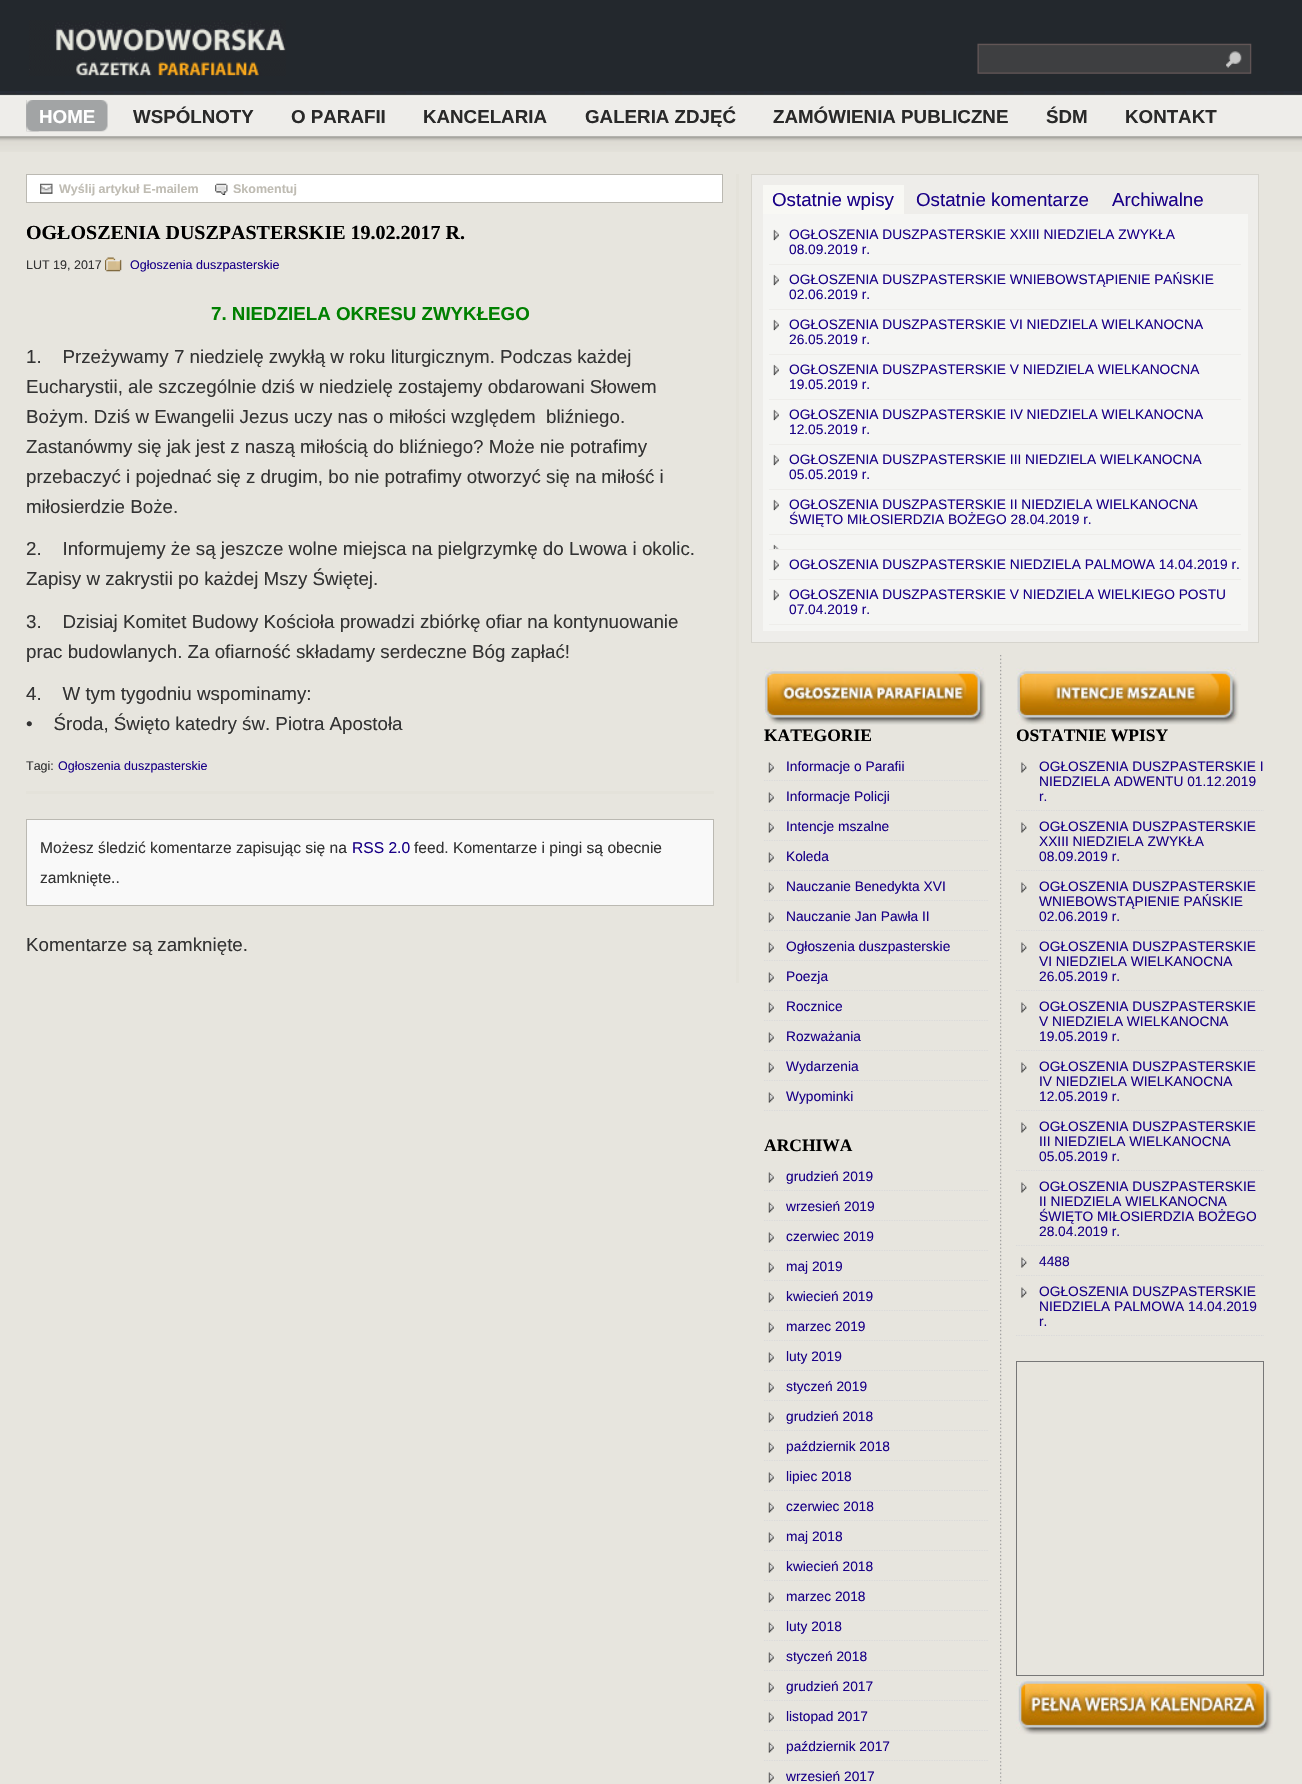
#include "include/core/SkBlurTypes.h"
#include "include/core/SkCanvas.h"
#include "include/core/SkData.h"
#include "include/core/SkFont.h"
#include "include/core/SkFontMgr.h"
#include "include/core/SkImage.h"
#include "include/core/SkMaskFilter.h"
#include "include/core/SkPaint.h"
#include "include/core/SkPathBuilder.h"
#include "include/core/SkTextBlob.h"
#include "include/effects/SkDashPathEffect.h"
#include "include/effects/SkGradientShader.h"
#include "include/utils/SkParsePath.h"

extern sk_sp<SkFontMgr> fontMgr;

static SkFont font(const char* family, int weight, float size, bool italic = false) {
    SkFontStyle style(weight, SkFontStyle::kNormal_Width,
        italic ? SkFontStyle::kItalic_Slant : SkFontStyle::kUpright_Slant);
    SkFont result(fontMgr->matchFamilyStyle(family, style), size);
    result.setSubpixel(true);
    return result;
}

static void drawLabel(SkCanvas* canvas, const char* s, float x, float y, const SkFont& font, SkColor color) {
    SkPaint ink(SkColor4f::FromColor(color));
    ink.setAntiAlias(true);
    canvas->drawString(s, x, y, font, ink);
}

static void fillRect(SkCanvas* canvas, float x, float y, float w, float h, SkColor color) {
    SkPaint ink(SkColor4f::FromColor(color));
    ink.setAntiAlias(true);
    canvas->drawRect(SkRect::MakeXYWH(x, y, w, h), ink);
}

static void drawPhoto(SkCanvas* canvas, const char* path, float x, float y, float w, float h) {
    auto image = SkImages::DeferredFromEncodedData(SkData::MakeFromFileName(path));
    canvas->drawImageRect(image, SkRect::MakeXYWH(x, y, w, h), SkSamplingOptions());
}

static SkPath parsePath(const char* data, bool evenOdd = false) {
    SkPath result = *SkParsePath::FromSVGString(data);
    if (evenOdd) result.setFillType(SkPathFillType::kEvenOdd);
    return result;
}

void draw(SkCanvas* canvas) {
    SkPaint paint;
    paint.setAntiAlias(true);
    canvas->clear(0xFFE7E5DE);
    drawPhoto(canvas, "assets/img1.png", 0, 0, 1302, 152);
    drawPhoto(canvas, "assets/img2.png", 29, 20, 257, 56);
    drawPhoto(canvas, "assets/img3.png", 977, 43, 275, 31);
    drawPhoto(canvas, "assets/img4.png", 1226, 51, 16, 17);
    drawPhoto(canvas, "assets/img5.png", 26, 100, 82, 32);
    drawPhoto(canvas, "assets/img6.png", 26, 100, 13, 32);
    SkFont font1 = font("Liberation Sans", 700, 18.75f);
    drawLabel(canvas, "HOME", 39, 123, font1, 0xFFFFFFFF);
    drawLabel(canvas, "WSPÓLNOTY", 133, 123, font1, 0xFF292929);
    drawLabel(canvas, "O PARAFII", 291, 123, font1, 0xFF292929);
    drawLabel(canvas, "KANCELARIA", 423, 123, font1, 0xFF292929);
    drawLabel(canvas, "GALERIA ZDJĘĆ", 585, 123, font1, 0xFF292929);
    drawLabel(canvas, "ZAMÓWIENIA PUBLICZNE", 773, 123, font1, 0xFF292929);
    drawLabel(canvas, "ŚDM", 1046, 123, font1, 0xFF292929);
    drawLabel(canvas, "KONTAKT", 1125, 123, font1, 0xFF292929);
    fillRect(canvas, 736, 174, 3, 809, 0xFFE4E2DA);
    paint.setColor(0xFFFFFFFF);
    canvas->drawRect(SkRect::MakeXYWH(26.5f, 174.5f, 696, 28), paint);
    paint.setStroke(true);
    paint.setStrokeWidth(1);
    paint.setColor(0xFFBBB9B2);
    canvas->drawRect(SkRect::MakeXYWH(26.5f, 174.5f, 696, 28), paint);
    drawPhoto(canvas, "assets/img7.png", 40, 183, 13, 11);
    SkFont font2 = font("Liberation Sans", 700, 12.5f);
    drawLabel(canvas, "Wyślij artykuł E-mailem", 59, 193, font2, 0xFFBFBCB3);
    drawPhoto(canvas, "assets/img8.png", 215, 183, 13, 12);
    drawLabel(canvas, "Skomentuj", 233, 193, font2, 0xFFBFBCB3);
    SkFont font3 = font("Liberation Serif", 700, 20);
    drawLabel(canvas, "OGŁOSZENIA DUSZPASTERSKIE 19.02.2017 R.", 26, 239, font3, 0xFF000000);
    SkFont font4 = font("Liberation Sans", 400, 12.5f);
    drawLabel(canvas, "LUT 19, 2017", 26, 269, font4, 0xFF333333);
    drawPhoto(canvas, "assets/img9.png", 105, 257, 17, 15);
    drawLabel(canvas, "Ogłoszenia duszpasterskie", 130, 269, font4, 0xFF190087);
    drawLabel(canvas, "7. NIEDZIELA OKRESU ZWYKŁEGO", 211, 320, font1, 0xFF008000);
    SkFont font5 = font("Liberation Sans", 400, 18.75f);
    drawLabel(canvas, "1.    Przeżywamy 7 niedzielę zwykłą w roku liturgicznym. Podczas każdej", 26, 363, font5, 0xFF333333);
    drawLabel(canvas, "Eucharystii, ale szczególnie dziś w niedzielę zostajemy obdarowani Słowem", 26, 393, font5, 0xFF333333);
    drawLabel(canvas, "Bożym. Dziś w Ewangelii Jezus uczy nas o miłości względem  bliźniego.", 26, 423, font5, 0xFF333333);
    drawLabel(canvas, "Zastanówmy się jak jest z naszą miłością do bliźniego? Może nie potrafimy", 26, 453, font5, 0xFF333333);
    drawLabel(canvas, "przebaczyć i pojednać się z drugim, bo nie potrafimy otworzyć się na miłość i", 26, 483, font5, 0xFF333333);
    drawLabel(canvas, "miłosierdzie Boże.", 26, 513, font5, 0xFF333333);
    drawLabel(canvas, "2.    Informujemy że są jeszcze wolne miejsca na pielgrzymkę do Lwowa i okolic.", 26, 555, font5, 0xFF333333);
    drawLabel(canvas, "Zapisy w zakrystii po każdej Mszy Świętej.", 26, 585, font5, 0xFF333333);
    drawLabel(canvas, "3.    Dzisiaj Komitet Budowy Kościoła prowadzi zbiórkę ofiar na kontynuowanie", 26, 628, font5, 0xFF333333);
    drawLabel(canvas, "prac budowlanych. Za ofiarność składamy serdeczne Bóg zapłać!", 26, 658, font5, 0xFF333333);
    drawLabel(canvas, "4.    W tym tygodniu wspominamy:", 26, 700, font5, 0xFF333333);
    drawLabel(canvas, "•    Środa, Święto katedry św. Piotra Apostoła", 26, 730, font5, 0xFF333333);
    fillRect(canvas, 26, 791, 688, 3, 0xFFE4E2DA);
    drawLabel(canvas, "Tagi:", 26, 770, font4, 0xFF333333);
    drawLabel(canvas, "Ogłoszenia duszpasterskie", 58, 770, font4, 0xFF190087);
    paint.setStroke(false);
    paint.setColor(0xFFF9F9F9);
    canvas->drawRect(SkRect::MakeXYWH(26.5f, 819.5f, 687, 86), paint);
    paint.setStroke(true);
    paint.setColor(0xFFBBB9B2);
    canvas->drawRect(SkRect::MakeXYWH(26.5f, 819.5f, 687, 86), paint);
    SkFont font6 = font("Liberation Sans", 400, 15.6f);
    drawLabel(canvas, "Możesz śledzić komentarze zapisując się na", 40, 853, font6, 0xFF333333);
    drawLabel(canvas, "RSS 2.0", 352, 853, font6, 0xFF190087);
    drawLabel(canvas, "feed. Komentarze i pingi są obecnie", 414, 853, font6, 0xFF333333);
    drawLabel(canvas, "zamknięte..", 40, 883, font6, 0xFF333333);
    drawLabel(canvas, "Komentarze są zamknięte.", 26, 951, font5, 0xFF333333);
    paint.setStroke(false);
    paint.setColor(0xFFEEEDEA);
    canvas->drawRect(SkRect::MakeXYWH(751.5f, 174.5f, 507, 468), paint);
    paint.setStroke(true);
    paint.setColor(0xFFD6D4CD);
    canvas->drawRect(SkRect::MakeXYWH(751.5f, 174.5f, 507, 468), paint);
    fillRect(canvas, 763, 185, 141, 29, 0xFFF8F8F4);
    drawLabel(canvas, "Ostatnie wpisy", 772, 206, font5, 0xFF190087);
    drawLabel(canvas, "Ostatnie komentarze", 916, 206, font5, 0xFF190087);
    drawLabel(canvas, "Archiwalne", 1112, 206, font5, 0xFF190087);
    fillRect(canvas, 763, 214, 485, 417, 0xFFF5F5F3);
    drawPhoto(canvas, "assets/img10.png", 773, 229, 6, 12);
    fillRect(canvas, 769, 264, 472, 1, 0xFFEEEDEA);
    SkFont font7 = font("Liberation Sans", 400, 13.75f);
    drawLabel(canvas, "OGŁOSZENIA DUSZPASTERSKIE XXIII NIEDZIELA ZWYKŁA", 789, 239, font7, 0xFF190087);
    drawLabel(canvas, "08.09.2019 r.", 789, 254, font7, 0xFF190087);
    drawPhoto(canvas, "assets/img10.png", 773, 274, 6, 12);
    fillRect(canvas, 769, 309, 472, 1, 0xFFEEEDEA);
    drawLabel(canvas, "OGŁOSZENIA DUSZPASTERSKIE WNIEBOWSTĄPIENIE PAŃSKIE", 789, 284, font7, 0xFF190087);
    drawLabel(canvas, "02.06.2019 r.", 789, 299, font7, 0xFF190087);
    drawPhoto(canvas, "assets/img10.png", 773, 319, 6, 12);
    fillRect(canvas, 769, 354, 472, 1, 0xFFEEEDEA);
    drawLabel(canvas, "OGŁOSZENIA DUSZPASTERSKIE VI NIEDZIELA WIELKANOCNA", 789, 329, font7, 0xFF190087);
    drawLabel(canvas, "26.05.2019 r.", 789, 344, font7, 0xFF190087);
    drawPhoto(canvas, "assets/img10.png", 773, 364, 6, 12);
    fillRect(canvas, 769, 399, 472, 1, 0xFFEEEDEA);
    drawLabel(canvas, "OGŁOSZENIA DUSZPASTERSKIE V NIEDZIELA WIELKANOCNA", 789, 374, font7, 0xFF190087);
    drawLabel(canvas, "19.05.2019 r.", 789, 389, font7, 0xFF190087);
    drawPhoto(canvas, "assets/img10.png", 773, 409, 6, 12);
    fillRect(canvas, 769, 444, 472, 1, 0xFFEEEDEA);
    drawLabel(canvas, "OGŁOSZENIA DUSZPASTERSKIE IV NIEDZIELA WIELKANOCNA", 789, 419, font7, 0xFF190087);
    drawLabel(canvas, "12.05.2019 r.", 789, 434, font7, 0xFF190087);
    drawPhoto(canvas, "assets/img10.png", 773, 454, 6, 12);
    fillRect(canvas, 769, 489, 472, 1, 0xFFEEEDEA);
    drawLabel(canvas, "OGŁOSZENIA DUSZPASTERSKIE III NIEDZIELA WIELKANOCNA", 789, 464, font7, 0xFF190087);
    drawLabel(canvas, "05.05.2019 r.", 789, 479, font7, 0xFF190087);
    drawPhoto(canvas, "assets/img10.png", 773, 499, 6, 12);
    fillRect(canvas, 769, 534, 472, 1, 0xFFEEEDEA);
    drawLabel(canvas, "OGŁOSZENIA DUSZPASTERSKIE II NIEDZIELA WIELKANOCNA", 789, 509, font7, 0xFF190087);
    drawLabel(canvas, "ŚWIĘTO MIŁOSIERDZIA BOŻEGO 28.04.2019 r.", 789, 524, font7, 0xFF190087);
    drawPhoto(canvas, "assets/img11.png", 773, 544, 6, 5);
    fillRect(canvas, 769, 549, 472, 1, 0xFFEEEDEA);
    drawPhoto(canvas, "assets/img10.png", 773, 559, 6, 12);
    fillRect(canvas, 769, 579, 472, 1, 0xFFEEEDEA);
    drawLabel(canvas, "OGŁOSZENIA DUSZPASTERSKIE NIEDZIELA PALMOWA 14.04.2019 r.", 789, 569, font7, 0xFF190087);
    drawPhoto(canvas, "assets/img10.png", 773, 589, 6, 12);
    fillRect(canvas, 769, 624, 472, 1, 0xFFEEEDEA);
    drawLabel(canvas, "OGŁOSZENIA DUSZPASTERSKIE V NIEDZIELA WIELKIEGO POSTU", 789, 599, font7, 0xFF190087);
    drawLabel(canvas, "07.04.2019 r.", 789, 614, font7, 0xFF190087);
    drawPhoto(canvas, "assets/img12.png", 1000, 655, 2, 1129);
    drawPhoto(canvas, "assets/img13.png", 764, 667, 222, 58);
    SkFont font8 = font("Liberation Serif", 700, 17.5f);
    drawLabel(canvas, "KATEGORIE", 764, 741, font8, 0xFF000000);
    drawPhoto(canvas, "assets/img14.png", 768, 762, 6, 11);
    paint.setStrokeWidth(1.2f);
    paint.setColor(0xFFDADADA);
    paint.setPathEffect(SkDashPathEffect::Make({{1.25f, 1.25f}}, 0));
    canvas->drawPath(parsePath("M764 780.5H989"), paint);
    paint.setPathEffect(nullptr);
    drawLabel(canvas, "Informacje o Parafii", 786, 771, font7, 0xFF190087);
    drawPhoto(canvas, "assets/img14.png", 768, 792, 6, 11);
    paint.setPathEffect(SkDashPathEffect::Make({{1.25f, 1.25f}}, 0));
    canvas->drawPath(parsePath("M764 810.5H989"), paint);
    paint.setPathEffect(nullptr);
    drawLabel(canvas, "Informacje Policji", 786, 801, font7, 0xFF190087);
    drawPhoto(canvas, "assets/img14.png", 768, 822, 6, 11);
    paint.setPathEffect(SkDashPathEffect::Make({{1.25f, 1.25f}}, 0));
    canvas->drawPath(parsePath("M764 840.5H989"), paint);
    paint.setPathEffect(nullptr);
    drawLabel(canvas, "Intencje mszalne", 786, 831, font7, 0xFF190087);
    drawPhoto(canvas, "assets/img14.png", 768, 852, 6, 11);
    paint.setPathEffect(SkDashPathEffect::Make({{1.25f, 1.25f}}, 0));
    canvas->drawPath(parsePath("M764 870.5H989"), paint);
    paint.setPathEffect(nullptr);
    drawLabel(canvas, "Koleda", 786, 861, font7, 0xFF190087);
    drawPhoto(canvas, "assets/img14.png", 768, 882, 6, 11);
    paint.setPathEffect(SkDashPathEffect::Make({{1.25f, 1.25f}}, 0));
    canvas->drawPath(parsePath("M764 900.5H989"), paint);
    paint.setPathEffect(nullptr);
    drawLabel(canvas, "Nauczanie Benedykta XVI", 786, 891, font7, 0xFF190087);
    drawPhoto(canvas, "assets/img14.png", 768, 912, 6, 11);
    paint.setPathEffect(SkDashPathEffect::Make({{1.25f, 1.25f}}, 0));
    canvas->drawPath(parsePath("M764 930.5H989"), paint);
    paint.setPathEffect(nullptr);
    drawLabel(canvas, "Nauczanie Jan Pawła II", 786, 921, font7, 0xFF190087);
    drawPhoto(canvas, "assets/img14.png", 768, 942, 6, 11);
    paint.setPathEffect(SkDashPathEffect::Make({{1.25f, 1.25f}}, 0));
    canvas->drawPath(parsePath("M764 960.5H989"), paint);
    paint.setPathEffect(nullptr);
    drawLabel(canvas, "Ogłoszenia duszpasterskie", 786, 951, font7, 0xFF190087);
    drawPhoto(canvas, "assets/img14.png", 768, 972, 6, 11);
    paint.setPathEffect(SkDashPathEffect::Make({{1.25f, 1.25f}}, 0));
    canvas->drawPath(parsePath("M764 990.5H989"), paint);
    paint.setPathEffect(nullptr);
    drawLabel(canvas, "Poezja", 786, 981, font7, 0xFF190087);
    drawPhoto(canvas, "assets/img14.png", 768, 1002, 6, 11);
    paint.setPathEffect(SkDashPathEffect::Make({{1.25f, 1.25f}}, 0));
    canvas->drawPath(parsePath("M764 1020.5H989"), paint);
    paint.setPathEffect(nullptr);
    drawLabel(canvas, "Rocznice", 786, 1011, font7, 0xFF190087);
    drawPhoto(canvas, "assets/img14.png", 768, 1032, 6, 11);
    paint.setPathEffect(SkDashPathEffect::Make({{1.25f, 1.25f}}, 0));
    canvas->drawPath(parsePath("M764 1050.5H989"), paint);
    paint.setPathEffect(nullptr);
    drawLabel(canvas, "Rozważania", 786, 1041, font7, 0xFF190087);
    drawPhoto(canvas, "assets/img14.png", 768, 1062, 6, 11);
    paint.setPathEffect(SkDashPathEffect::Make({{1.25f, 1.25f}}, 0));
    canvas->drawPath(parsePath("M764 1080.5H989"), paint);
    paint.setPathEffect(nullptr);
    drawLabel(canvas, "Wydarzenia", 786, 1071, font7, 0xFF190087);
    drawPhoto(canvas, "assets/img14.png", 768, 1092, 6, 11);
    paint.setPathEffect(SkDashPathEffect::Make({{1.25f, 1.25f}}, 0));
    canvas->drawPath(parsePath("M764 1110.5H989"), paint);
    paint.setPathEffect(nullptr);
    drawLabel(canvas, "Wypominki", 786, 1101, font7, 0xFF190087);
    drawLabel(canvas, "ARCHIWA", 764, 1151, font8, 0xFF000000);
    drawPhoto(canvas, "assets/img15.png", 768, 1172, 6, 11);
    paint.setPathEffect(SkDashPathEffect::Make({{1.25f, 1.25f}}, 0));
    canvas->drawPath(parsePath("M764 1190.5H989"), paint);
    paint.setPathEffect(nullptr);
    drawLabel(canvas, "grudzień 2019", 786, 1181, font7, 0xFF190087);
    drawPhoto(canvas, "assets/img14.png", 768, 1202, 6, 11);
    paint.setPathEffect(SkDashPathEffect::Make({{1.25f, 1.25f}}, 0));
    canvas->drawPath(parsePath("M764 1220.5H989"), paint);
    paint.setPathEffect(nullptr);
    drawLabel(canvas, "wrzesień 2019", 786, 1211, font7, 0xFF190087);
    drawPhoto(canvas, "assets/img14.png", 768, 1232, 6, 11);
    paint.setPathEffect(SkDashPathEffect::Make({{1.25f, 1.25f}}, 0));
    canvas->drawPath(parsePath("M764 1250.5H989"), paint);
    paint.setPathEffect(nullptr);
    drawLabel(canvas, "czerwiec 2019", 786, 1241, font7, 0xFF190087);
    drawPhoto(canvas, "assets/img14.png", 768, 1262, 6, 11);
    paint.setPathEffect(SkDashPathEffect::Make({{1.25f, 1.25f}}, 0));
    canvas->drawPath(parsePath("M764 1280.5H989"), paint);
    paint.setPathEffect(nullptr);
    drawLabel(canvas, "maj 2019", 786, 1271, font7, 0xFF190087);
    drawPhoto(canvas, "assets/img14.png", 768, 1292, 6, 11);
    paint.setPathEffect(SkDashPathEffect::Make({{1.25f, 1.25f}}, 0));
    canvas->drawPath(parsePath("M764 1310.5H989"), paint);
    paint.setPathEffect(nullptr);
    drawLabel(canvas, "kwiecień 2019", 786, 1301, font7, 0xFF190087);
    drawPhoto(canvas, "assets/img14.png", 768, 1322, 6, 11);
    paint.setPathEffect(SkDashPathEffect::Make({{1.25f, 1.25f}}, 0));
    canvas->drawPath(parsePath("M764 1340.5H989"), paint);
    paint.setPathEffect(nullptr);
    drawLabel(canvas, "marzec 2019", 786, 1331, font7, 0xFF190087);
    drawPhoto(canvas, "assets/img14.png", 768, 1352, 6, 11);
    paint.setPathEffect(SkDashPathEffect::Make({{1.25f, 1.25f}}, 0));
    canvas->drawPath(parsePath("M764 1370.5H989"), paint);
    paint.setPathEffect(nullptr);
    drawLabel(canvas, "luty 2019", 786, 1361, font7, 0xFF190087);
    drawPhoto(canvas, "assets/img14.png", 768, 1382, 6, 11);
    paint.setPathEffect(SkDashPathEffect::Make({{1.25f, 1.25f}}, 0));
    canvas->drawPath(parsePath("M764 1400.5H989"), paint);
    paint.setPathEffect(nullptr);
    drawLabel(canvas, "styczeń 2019", 786, 1391, font7, 0xFF190087);
    drawPhoto(canvas, "assets/img14.png", 768, 1412, 6, 11);
    paint.setPathEffect(SkDashPathEffect::Make({{1.25f, 1.25f}}, 0));
    canvas->drawPath(parsePath("M764 1430.5H989"), paint);
    paint.setPathEffect(nullptr);
    drawLabel(canvas, "grudzień 2018", 786, 1421, font7, 0xFF190087);
    drawPhoto(canvas, "assets/img14.png", 768, 1442, 6, 11);
    paint.setPathEffect(SkDashPathEffect::Make({{1.25f, 1.25f}}, 0));
    canvas->drawPath(parsePath("M764 1460.5H989"), paint);
    paint.setPathEffect(nullptr);
    drawLabel(canvas, "październik 2018", 786, 1451, font7, 0xFF190087);
    drawPhoto(canvas, "assets/img14.png", 768, 1472, 6, 11);
    paint.setPathEffect(SkDashPathEffect::Make({{1.25f, 1.25f}}, 0));
    canvas->drawPath(parsePath("M764 1490.5H989"), paint);
    paint.setPathEffect(nullptr);
    drawLabel(canvas, "lipiec 2018", 786, 1481, font7, 0xFF190087);
    drawPhoto(canvas, "assets/img14.png", 768, 1502, 6, 11);
    paint.setPathEffect(SkDashPathEffect::Make({{1.25f, 1.25f}}, 0));
    canvas->drawPath(parsePath("M764 1520.5H989"), paint);
    paint.setPathEffect(nullptr);
    drawLabel(canvas, "czerwiec 2018", 786, 1511, font7, 0xFF190087);
    drawPhoto(canvas, "assets/img14.png", 768, 1532, 6, 11);
    paint.setPathEffect(SkDashPathEffect::Make({{1.25f, 1.25f}}, 0));
    canvas->drawPath(parsePath("M764 1550.5H989"), paint);
    paint.setPathEffect(nullptr);
    drawLabel(canvas, "maj 2018", 786, 1541, font7, 0xFF190087);
    drawPhoto(canvas, "assets/img15.png", 768, 1562, 6, 11);
    paint.setPathEffect(SkDashPathEffect::Make({{1.25f, 1.25f}}, 0));
    canvas->drawPath(parsePath("M764 1580.5H989"), paint);
    paint.setPathEffect(nullptr);
    drawLabel(canvas, "kwiecień 2018", 786, 1571, font7, 0xFF190087);
    drawPhoto(canvas, "assets/img14.png", 768, 1592, 6, 11);
    paint.setPathEffect(SkDashPathEffect::Make({{1.25f, 1.25f}}, 0));
    canvas->drawPath(parsePath("M764 1610.5H989"), paint);
    paint.setPathEffect(nullptr);
    drawLabel(canvas, "marzec 2018", 786, 1601, font7, 0xFF190087);
    drawPhoto(canvas, "assets/img14.png", 768, 1622, 6, 11);
    paint.setPathEffect(SkDashPathEffect::Make({{1.25f, 1.25f}}, 0));
    canvas->drawPath(parsePath("M764 1640.5H989"), paint);
    paint.setPathEffect(nullptr);
    drawLabel(canvas, "luty 2018", 786, 1631, font7, 0xFF190087);
    drawPhoto(canvas, "assets/img14.png", 768, 1652, 6, 11);
    paint.setPathEffect(SkDashPathEffect::Make({{1.25f, 1.25f}}, 0));
    canvas->drawPath(parsePath("M764 1670.5H989"), paint);
    paint.setPathEffect(nullptr);
    drawLabel(canvas, "styczeń 2018", 786, 1661, font7, 0xFF190087);
    drawPhoto(canvas, "assets/img14.png", 768, 1682, 6, 11);
    paint.setPathEffect(SkDashPathEffect::Make({{1.25f, 1.25f}}, 0));
    canvas->drawPath(parsePath("M764 1700.5H989"), paint);
    paint.setPathEffect(nullptr);
    drawLabel(canvas, "grudzień 2017", 786, 1691, font7, 0xFF190087);
    drawPhoto(canvas, "assets/img14.png", 768, 1712, 6, 11);
    paint.setPathEffect(SkDashPathEffect::Make({{1.25f, 1.25f}}, 0));
    canvas->drawPath(parsePath("M764 1730.5H989"), paint);
    paint.setPathEffect(nullptr);
    drawLabel(canvas, "listopad 2017", 786, 1721, font7, 0xFF190087);
    drawPhoto(canvas, "assets/img14.png", 768, 1742, 6, 11);
    paint.setPathEffect(SkDashPathEffect::Make({{1.25f, 1.25f}}, 0));
    canvas->drawPath(parsePath("M764 1760.5H989"), paint);
    paint.setPathEffect(nullptr);
    drawLabel(canvas, "październik 2017", 786, 1751, font7, 0xFF190087);
    drawPhoto(canvas, "assets/img14.png", 768, 1772, 6, 11);
    drawLabel(canvas, "wrzesień 2017", 786, 1781, font7, 0xFF190087);
    drawPhoto(canvas, "assets/img16.png", 1016, 667, 223, 58);
    drawLabel(canvas, "OSTATNIE WPISY", 1016, 741, font8, 0xFF000000);
    drawPhoto(canvas, "assets/img17.png", 1021, 762, 6, 11);
    paint.setPathEffect(SkDashPathEffect::Make({{1.25f, 1.25f}}, 0));
    canvas->drawPath(parsePath("M1016 810.5H1264"), paint);
    paint.setPathEffect(nullptr);
    drawLabel(canvas, "OGŁOSZENIA DUSZPASTERSKIE I", 1039, 771, font7, 0xFF190087);
    drawLabel(canvas, "NIEDZIELA ADWENTU 01.12.2019", 1039, 786, font7, 0xFF190087);
    drawLabel(canvas, "r.", 1039, 801, font7, 0xFF190087);
    drawPhoto(canvas, "assets/img17.png", 1021, 822, 6, 11);
    paint.setPathEffect(SkDashPathEffect::Make({{1.25f, 1.25f}}, 0));
    canvas->drawPath(parsePath("M1016 870.5H1264"), paint);
    paint.setPathEffect(nullptr);
    drawLabel(canvas, "OGŁOSZENIA DUSZPASTERSKIE", 1039, 831, font7, 0xFF190087);
    drawLabel(canvas, "XXIII NIEDZIELA ZWYKŁA", 1039, 846, font7, 0xFF190087);
    drawLabel(canvas, "08.09.2019 r.", 1039, 861, font7, 0xFF190087);
    drawPhoto(canvas, "assets/img17.png", 1021, 882, 6, 11);
    paint.setPathEffect(SkDashPathEffect::Make({{1.25f, 1.25f}}, 0));
    canvas->drawPath(parsePath("M1016 930.5H1264"), paint);
    paint.setPathEffect(nullptr);
    drawLabel(canvas, "OGŁOSZENIA DUSZPASTERSKIE", 1039, 891, font7, 0xFF190087);
    drawLabel(canvas, "WNIEBOWSTĄPIENIE PAŃSKIE", 1039, 906, font7, 0xFF190087);
    drawLabel(canvas, "02.06.2019 r.", 1039, 921, font7, 0xFF190087);
    drawPhoto(canvas, "assets/img17.png", 1021, 942, 6, 11);
    paint.setPathEffect(SkDashPathEffect::Make({{1.25f, 1.25f}}, 0));
    canvas->drawPath(parsePath("M1016 990.5H1264"), paint);
    paint.setPathEffect(nullptr);
    drawLabel(canvas, "OGŁOSZENIA DUSZPASTERSKIE", 1039, 951, font7, 0xFF190087);
    drawLabel(canvas, "VI NIEDZIELA WIELKANOCNA", 1039, 966, font7, 0xFF190087);
    drawLabel(canvas, "26.05.2019 r.", 1039, 981, font7, 0xFF190087);
    drawPhoto(canvas, "assets/img17.png", 1021, 1002, 6, 11);
    paint.setPathEffect(SkDashPathEffect::Make({{1.25f, 1.25f}}, 0));
    canvas->drawPath(parsePath("M1016 1050.5H1264"), paint);
    paint.setPathEffect(nullptr);
    drawLabel(canvas, "OGŁOSZENIA DUSZPASTERSKIE", 1039, 1011, font7, 0xFF190087);
    drawLabel(canvas, "V NIEDZIELA WIELKANOCNA", 1039, 1026, font7, 0xFF190087);
    drawLabel(canvas, "19.05.2019 r.", 1039, 1041, font7, 0xFF190087);
    drawPhoto(canvas, "assets/img17.png", 1021, 1062, 6, 11);
    paint.setPathEffect(SkDashPathEffect::Make({{1.25f, 1.25f}}, 0));
    canvas->drawPath(parsePath("M1016 1110.5H1264"), paint);
    paint.setPathEffect(nullptr);
    drawLabel(canvas, "OGŁOSZENIA DUSZPASTERSKIE", 1039, 1071, font7, 0xFF190087);
    drawLabel(canvas, "IV NIEDZIELA WIELKANOCNA", 1039, 1086, font7, 0xFF190087);
    drawLabel(canvas, "12.05.2019 r.", 1039, 1101, font7, 0xFF190087);
    drawPhoto(canvas, "assets/img17.png", 1021, 1122, 6, 11);
    paint.setPathEffect(SkDashPathEffect::Make({{1.25f, 1.25f}}, 0));
    canvas->drawPath(parsePath("M1016 1170.5H1264"), paint);
    paint.setPathEffect(nullptr);
    drawLabel(canvas, "OGŁOSZENIA DUSZPASTERSKIE", 1039, 1131, font7, 0xFF190087);
    drawLabel(canvas, "III NIEDZIELA WIELKANOCNA", 1039, 1146, font7, 0xFF190087);
    drawLabel(canvas, "05.05.2019 r.", 1039, 1161, font7, 0xFF190087);
    drawPhoto(canvas, "assets/img17.png", 1021, 1182, 6, 11);
    paint.setPathEffect(SkDashPathEffect::Make({{1.25f, 1.25f}}, 0));
    canvas->drawPath(parsePath("M1016 1245.5H1264"), paint);
    paint.setPathEffect(nullptr);
    drawLabel(canvas, "OGŁOSZENIA DUSZPASTERSKIE", 1039, 1191, font7, 0xFF190087);
    drawLabel(canvas, "II NIEDZIELA WIELKANOCNA", 1039, 1206, font7, 0xFF190087);
    drawLabel(canvas, "ŚWIĘTO MIŁOSIERDZIA BOŻEGO", 1039, 1221, font7, 0xFF190087);
    drawLabel(canvas, "28.04.2019 r.", 1039, 1236, font7, 0xFF190087);
    drawPhoto(canvas, "assets/img17.png", 1021, 1257, 6, 11);
    paint.setPathEffect(SkDashPathEffect::Make({{1.25f, 1.25f}}, 0));
    canvas->drawPath(parsePath("M1016 1275.5H1264"), paint);
    paint.setPathEffect(nullptr);
    drawLabel(canvas, "4488", 1039, 1266, font7, 0xFF190087);
    drawPhoto(canvas, "assets/img17.png", 1021, 1287, 6, 11);
    paint.setPathEffect(SkDashPathEffect::Make({{1.25f, 1.25f}}, 0));
    canvas->drawPath(parsePath("M1016 1335.5H1264"), paint);
    paint.setPathEffect(nullptr);
    drawLabel(canvas, "OGŁOSZENIA DUSZPASTERSKIE", 1039, 1296, font7, 0xFF190087);
    drawLabel(canvas, "NIEDZIELA PALMOWA 14.04.2019", 1039, 1311, font7, 0xFF190087);
    drawLabel(canvas, "r.", 1039, 1326, font7, 0xFF190087);
    paint.setStrokeWidth(1);
    paint.setColor(0xFF777777);
    canvas->drawRect(SkRect::MakeXYWH(1016.5f, 1361.5f, 247, 314), paint);
    drawPhoto(canvas, "assets/img18.png", 1016, 1680, 257, 55);
}
